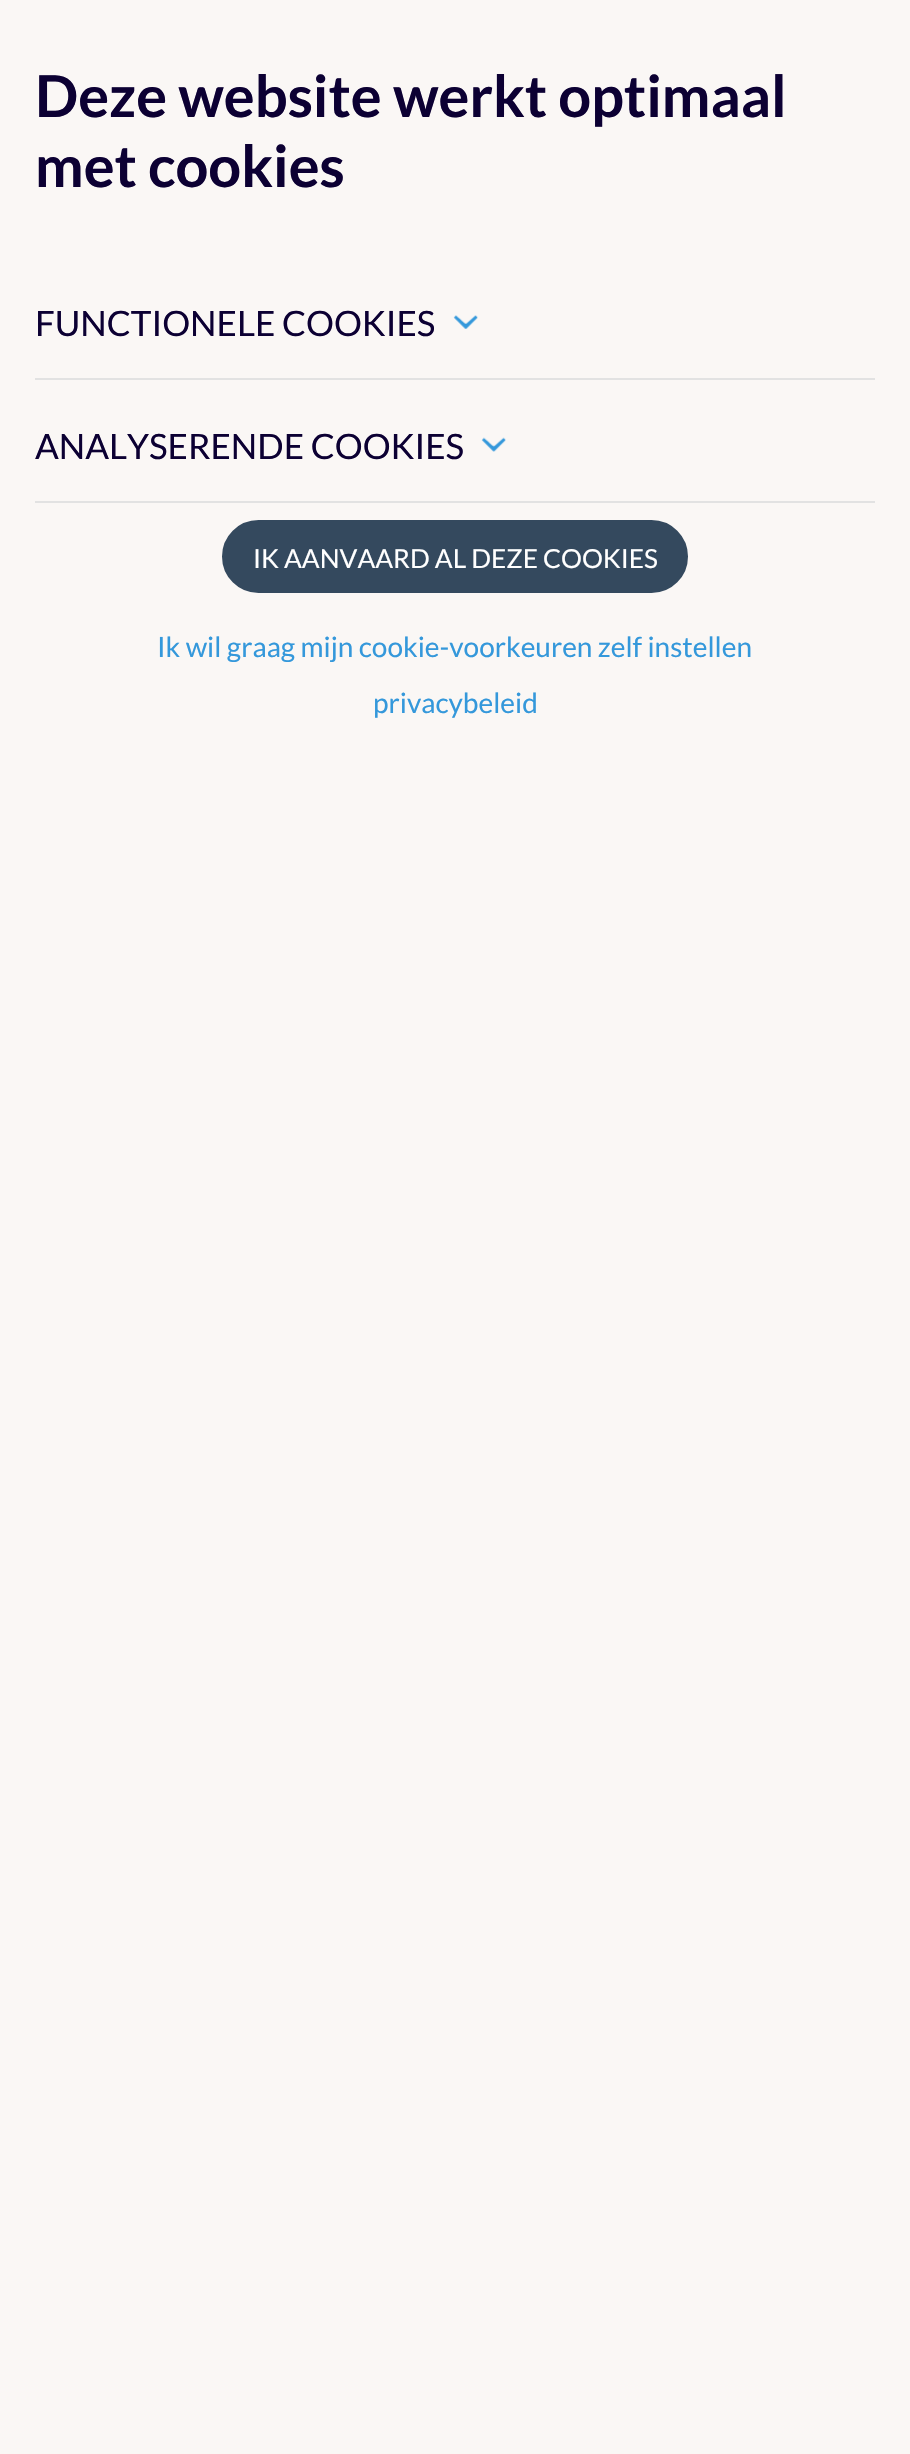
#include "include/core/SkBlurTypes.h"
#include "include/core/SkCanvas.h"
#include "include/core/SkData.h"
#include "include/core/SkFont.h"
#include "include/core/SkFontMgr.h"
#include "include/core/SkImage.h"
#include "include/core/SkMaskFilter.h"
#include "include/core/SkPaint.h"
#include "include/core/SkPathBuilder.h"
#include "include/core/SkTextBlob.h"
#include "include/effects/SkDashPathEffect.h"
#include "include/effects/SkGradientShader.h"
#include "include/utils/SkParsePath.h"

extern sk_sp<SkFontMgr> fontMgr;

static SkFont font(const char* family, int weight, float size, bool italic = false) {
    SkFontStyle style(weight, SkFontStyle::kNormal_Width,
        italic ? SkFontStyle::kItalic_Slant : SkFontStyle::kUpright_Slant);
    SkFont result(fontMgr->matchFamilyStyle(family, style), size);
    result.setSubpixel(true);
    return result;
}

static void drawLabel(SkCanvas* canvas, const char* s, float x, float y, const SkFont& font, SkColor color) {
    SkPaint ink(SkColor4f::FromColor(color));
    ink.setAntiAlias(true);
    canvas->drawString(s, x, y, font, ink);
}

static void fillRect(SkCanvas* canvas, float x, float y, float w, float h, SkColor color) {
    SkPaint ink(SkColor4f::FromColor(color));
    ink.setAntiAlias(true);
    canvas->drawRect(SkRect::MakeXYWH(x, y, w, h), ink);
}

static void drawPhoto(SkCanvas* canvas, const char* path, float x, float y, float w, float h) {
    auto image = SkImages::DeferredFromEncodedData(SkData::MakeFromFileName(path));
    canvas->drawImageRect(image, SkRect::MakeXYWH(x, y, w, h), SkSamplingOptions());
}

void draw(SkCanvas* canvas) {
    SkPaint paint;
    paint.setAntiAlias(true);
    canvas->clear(0xFFFAF7F5);
    SkFont font1 = font("Lato", 700, 57.75f);
    drawLabel(canvas, "Deze website werkt optimaal", 35, 117, font1, 0xFF0C0033);
    drawLabel(canvas, "met cookies", 35, 187, font1, 0xFF0C0033);
    SkFont font2 = font("Lato", 400, 35);
    drawLabel(canvas, "FUNCTIONELE COOKIES", 35, 336, font2, 0xFF0C0033);
    drawPhoto(canvas, "assets/img1.png", 453, 315, 25, 14);
    fillRect(canvas, 35, 378, 840, 2, 0xFFE2E2E2);
    drawLabel(canvas, "ANALYSERENDE COOKIES", 35, 459, font2, 0xFF0C0033);
    drawPhoto(canvas, "assets/img2.png", 481, 437, 25, 15);
    fillRect(canvas, 35, 501, 840, 2, 0xFFE2E2E2);
    paint.setColor(0xFF34495E);
    canvas->drawRoundRect(SkRect::MakeXYWH(224, 522, 462, 69), 34.5f, 34.5f, paint);
    paint.setStroke(true);
    paint.setStrokeWidth(4);
    canvas->drawRoundRect(SkRect::MakeXYWH(224, 522, 462, 69), 34.5f, 34.5f, paint);
    SkFont font3 = font("Lato", 400, 26.25f);
    drawLabel(canvas, "IK AANVAARD AL DEZE COOKIES", 253, 568, font3, 0xFFFFFFFF);
    SkFont font4 = font("Lato", 400, 28);
    drawLabel(canvas, "Ik wil graag mijn cookie-voorkeuren zelf instellen", 157, 657, font4, 0xFF3498DB);
    drawLabel(canvas, "privacybeleid", 373, 713, font4, 0xFF3498DB);
}
